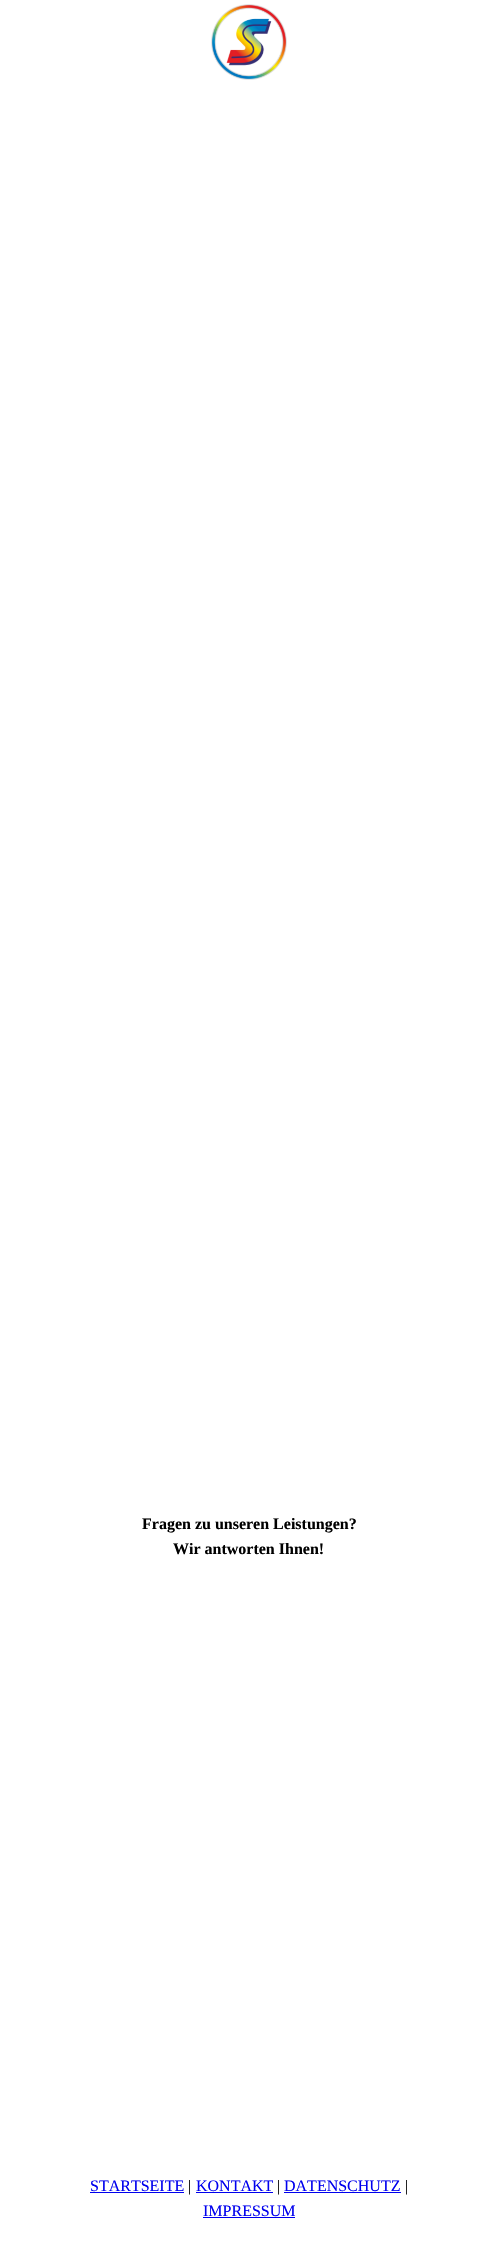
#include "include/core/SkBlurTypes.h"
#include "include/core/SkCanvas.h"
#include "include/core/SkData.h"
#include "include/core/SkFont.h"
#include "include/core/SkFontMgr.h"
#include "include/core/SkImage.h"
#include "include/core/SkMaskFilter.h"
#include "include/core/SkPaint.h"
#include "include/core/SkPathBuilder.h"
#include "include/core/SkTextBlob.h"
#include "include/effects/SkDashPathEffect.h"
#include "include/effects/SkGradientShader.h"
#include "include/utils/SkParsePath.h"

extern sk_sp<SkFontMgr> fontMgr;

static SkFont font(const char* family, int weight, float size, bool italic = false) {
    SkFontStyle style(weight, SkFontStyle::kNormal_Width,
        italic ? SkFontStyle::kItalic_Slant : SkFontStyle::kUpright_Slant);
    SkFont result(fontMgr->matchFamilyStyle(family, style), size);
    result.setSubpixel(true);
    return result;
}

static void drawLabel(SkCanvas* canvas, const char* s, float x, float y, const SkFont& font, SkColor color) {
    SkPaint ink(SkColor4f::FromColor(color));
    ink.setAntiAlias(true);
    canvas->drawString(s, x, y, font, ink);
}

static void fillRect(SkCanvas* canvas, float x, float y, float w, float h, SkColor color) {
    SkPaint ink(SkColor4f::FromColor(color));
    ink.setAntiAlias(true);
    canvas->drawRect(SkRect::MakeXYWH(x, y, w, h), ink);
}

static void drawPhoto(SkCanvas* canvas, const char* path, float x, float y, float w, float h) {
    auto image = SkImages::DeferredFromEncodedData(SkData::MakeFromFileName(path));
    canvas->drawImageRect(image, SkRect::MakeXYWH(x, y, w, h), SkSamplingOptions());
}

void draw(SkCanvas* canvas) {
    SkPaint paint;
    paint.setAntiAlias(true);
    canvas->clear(0xFFFFFFFF);
    drawPhoto(canvas, "assets/img1.png", 211, 4, 76, 76);
    SkFont font1 = font("Liberation Serif", 700, 16);
    drawLabel(canvas, "Fragen zu unseren Leistungen?", 142, 1529, font1, 0xFF000000);
    drawLabel(canvas, "Wir antworten Ihnen!", 173, 1554, font1, 0xFF000000);
    SkFont font2 = font("Liberation Serif", 400, 16);
    drawLabel(canvas, "STARTSEITE", 90, 2191, font2, 0xFF0000EE);
    fillRect(canvas, 90, 2192, 94, 1, 0xFF0000EE);
    drawLabel(canvas, "|", 188, 2191, font2, 0xFF000000);
    drawLabel(canvas, "KONTAKT", 196, 2191, font2, 0xFF0000EE);
    fillRect(canvas, 196, 2192, 77, 1, 0xFF0000EE);
    drawLabel(canvas, "|", 277, 2191, font2, 0xFF000000);
    drawLabel(canvas, "DATENSCHUTZ", 284, 2191, font2, 0xFF0000EE);
    fillRect(canvas, 284, 2192, 117, 1, 0xFF0000EE);
    drawLabel(canvas, "|", 405, 2191, font2, 0xFF000000);
    drawLabel(canvas, "IMPRESSUM", 203, 2216, font2, 0xFF0000EE);
    fillRect(canvas, 203, 2217, 92, 1, 0xFF0000EE);
}
